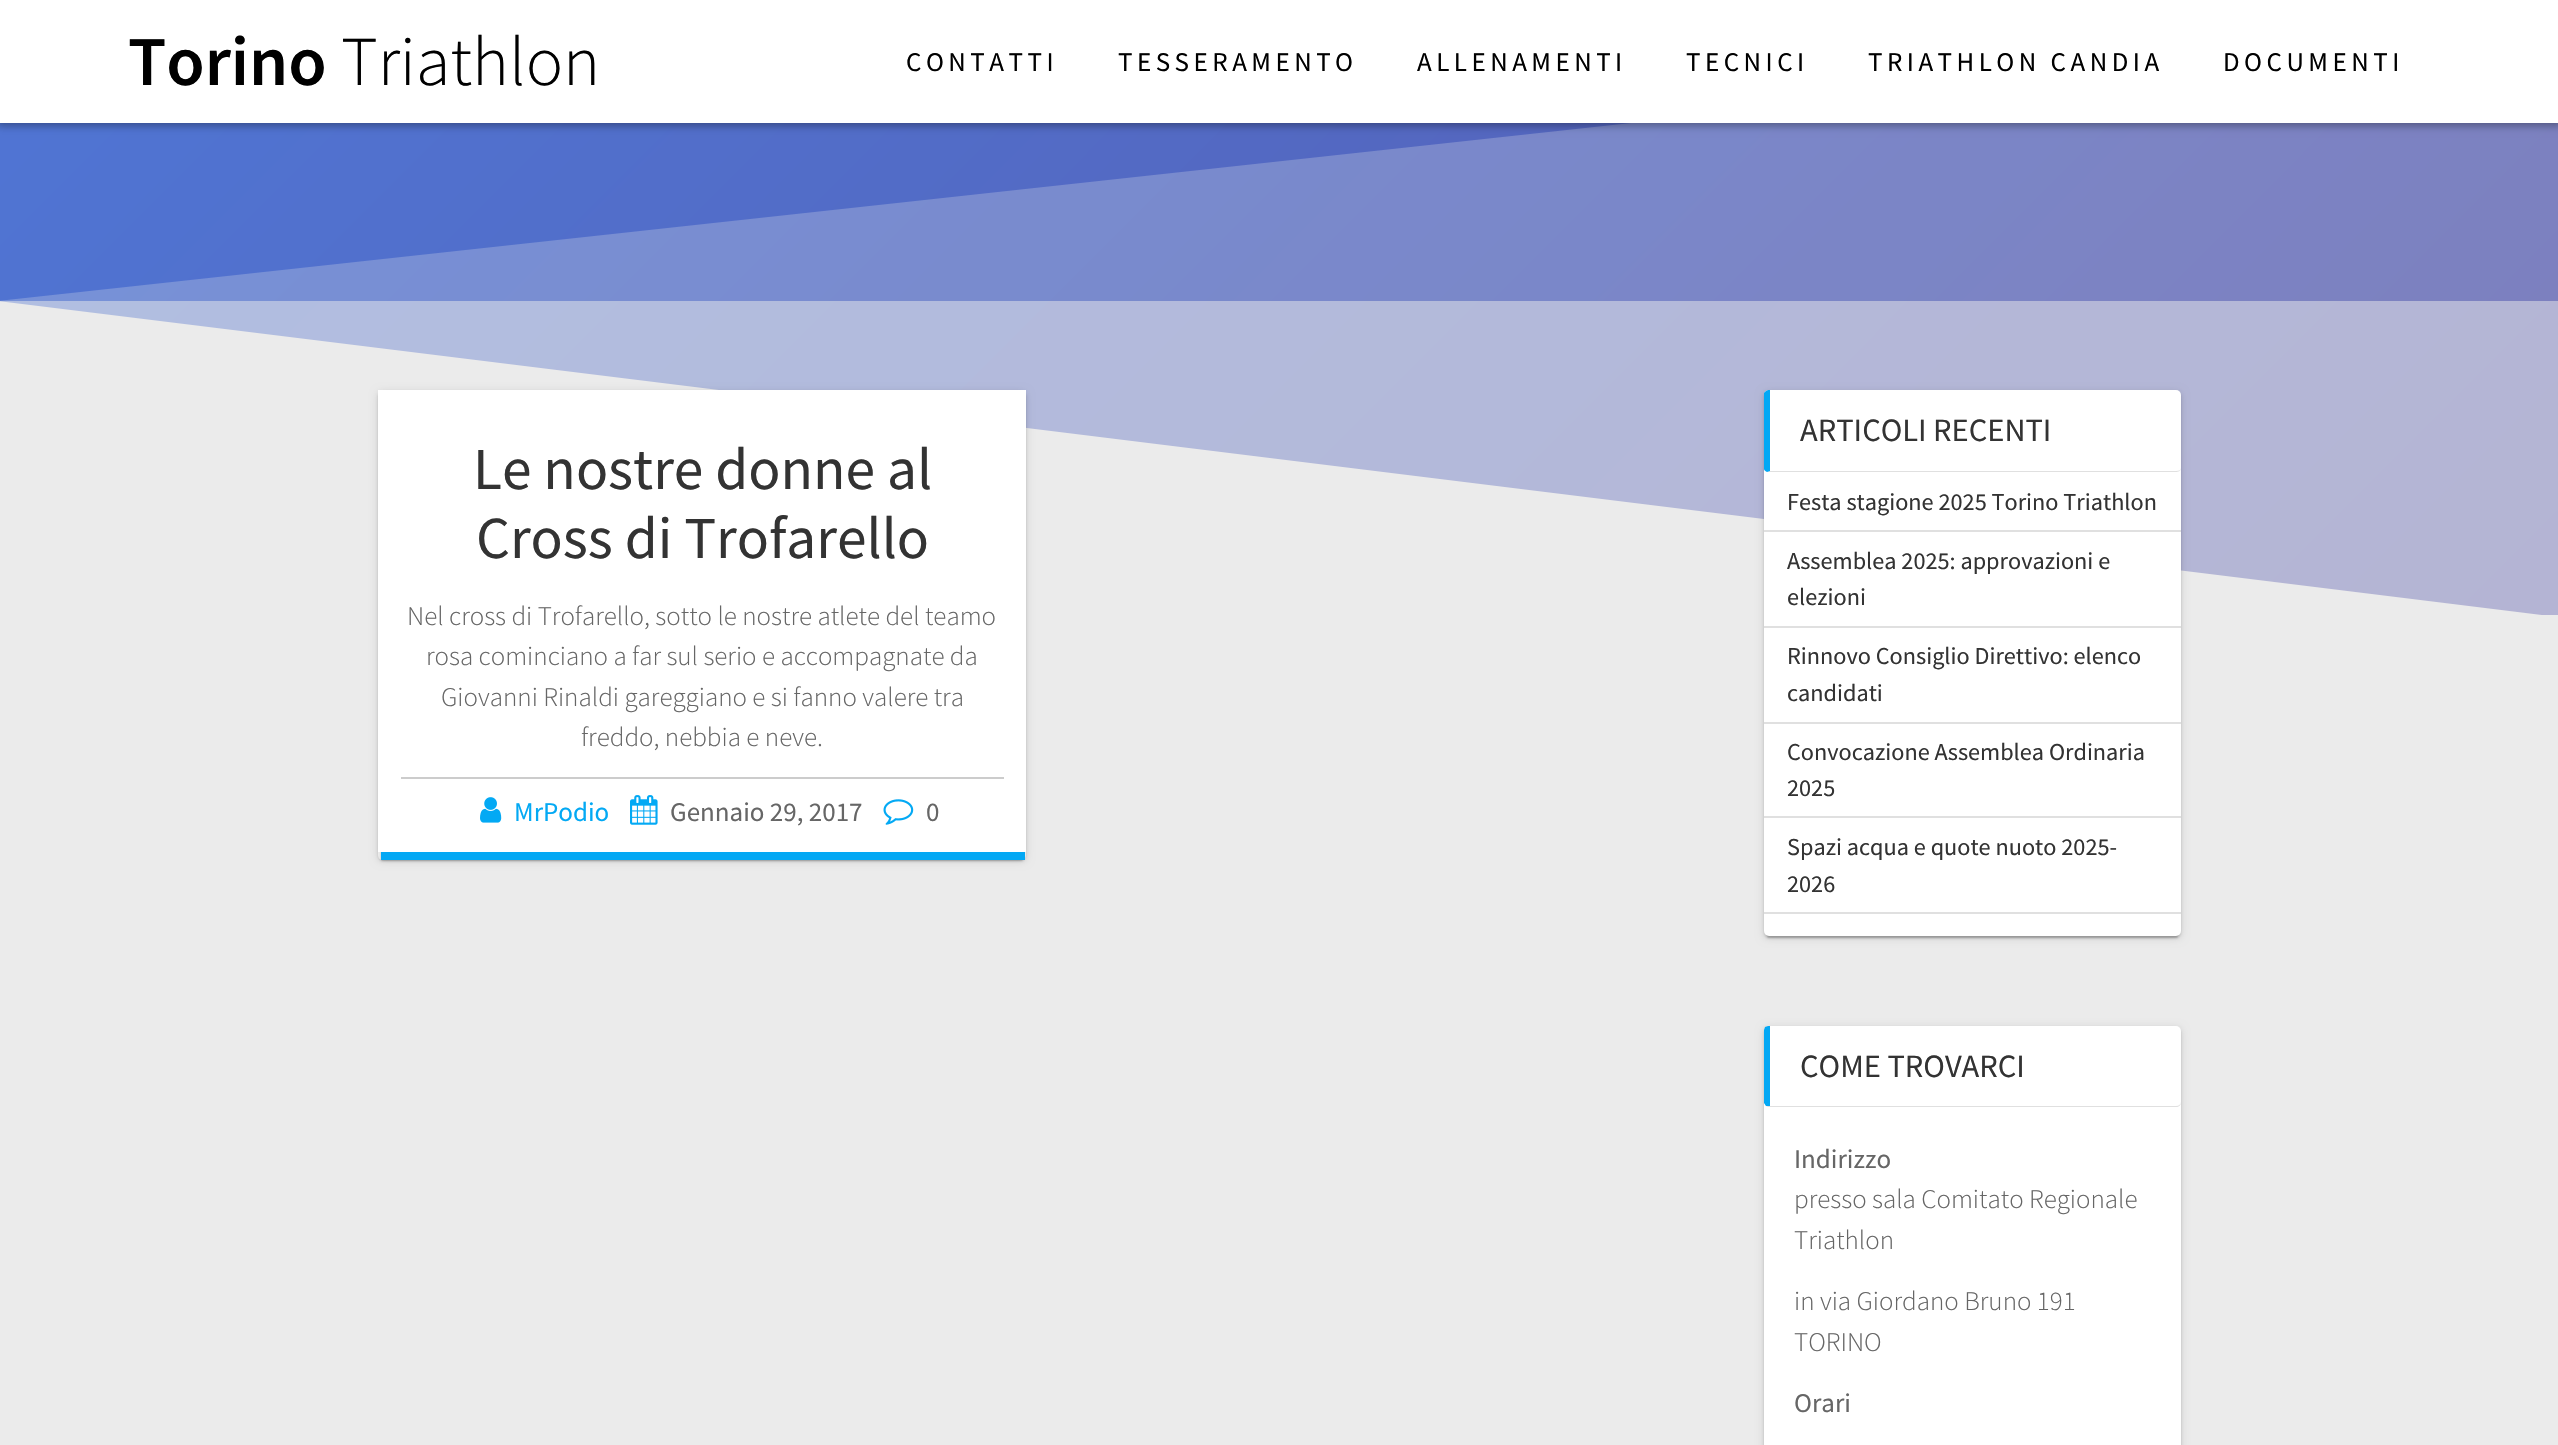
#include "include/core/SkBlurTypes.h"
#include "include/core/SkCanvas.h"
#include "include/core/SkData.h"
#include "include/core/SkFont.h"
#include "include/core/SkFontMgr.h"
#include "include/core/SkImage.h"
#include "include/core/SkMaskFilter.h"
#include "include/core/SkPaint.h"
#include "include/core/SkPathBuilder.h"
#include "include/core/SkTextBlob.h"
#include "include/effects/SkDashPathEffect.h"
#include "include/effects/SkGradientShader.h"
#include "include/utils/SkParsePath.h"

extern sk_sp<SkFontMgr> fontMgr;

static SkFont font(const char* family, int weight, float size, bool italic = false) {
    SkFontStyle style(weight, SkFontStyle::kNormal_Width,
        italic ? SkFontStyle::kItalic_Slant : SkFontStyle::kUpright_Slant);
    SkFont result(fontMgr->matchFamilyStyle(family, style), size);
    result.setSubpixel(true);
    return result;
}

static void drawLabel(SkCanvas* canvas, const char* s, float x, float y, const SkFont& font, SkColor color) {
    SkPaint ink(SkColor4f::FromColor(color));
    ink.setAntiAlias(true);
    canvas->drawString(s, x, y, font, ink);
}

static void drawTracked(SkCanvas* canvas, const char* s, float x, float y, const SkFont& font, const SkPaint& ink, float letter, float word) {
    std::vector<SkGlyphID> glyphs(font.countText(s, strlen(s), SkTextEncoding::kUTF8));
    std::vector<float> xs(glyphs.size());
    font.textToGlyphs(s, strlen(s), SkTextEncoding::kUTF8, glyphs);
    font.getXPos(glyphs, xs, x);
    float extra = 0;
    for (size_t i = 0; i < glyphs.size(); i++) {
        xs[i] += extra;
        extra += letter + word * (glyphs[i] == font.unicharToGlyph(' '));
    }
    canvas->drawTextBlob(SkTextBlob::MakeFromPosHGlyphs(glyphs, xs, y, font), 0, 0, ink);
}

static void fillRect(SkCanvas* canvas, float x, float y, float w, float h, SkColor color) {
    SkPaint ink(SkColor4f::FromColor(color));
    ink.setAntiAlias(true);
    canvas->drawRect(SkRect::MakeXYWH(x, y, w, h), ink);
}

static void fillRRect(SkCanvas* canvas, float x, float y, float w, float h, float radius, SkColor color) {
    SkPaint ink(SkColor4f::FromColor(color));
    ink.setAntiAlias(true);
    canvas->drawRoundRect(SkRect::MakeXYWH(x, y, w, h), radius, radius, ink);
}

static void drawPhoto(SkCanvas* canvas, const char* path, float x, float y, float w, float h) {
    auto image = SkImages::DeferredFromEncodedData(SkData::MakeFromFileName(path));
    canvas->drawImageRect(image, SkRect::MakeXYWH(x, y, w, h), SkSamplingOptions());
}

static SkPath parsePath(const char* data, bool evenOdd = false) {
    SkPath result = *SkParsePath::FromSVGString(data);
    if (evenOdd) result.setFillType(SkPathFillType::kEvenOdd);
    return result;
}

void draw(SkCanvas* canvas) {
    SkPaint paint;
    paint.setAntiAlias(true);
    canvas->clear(0xFFFFFFFF);
    {
        const SkColor colors[] = {0xFF4E7ADB, 0xFF5859AC};
        const float stops[] = {0, 1};
        const SkPoint ends[] = {{367, -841}, {2192, 983}};
        paint.setShader(SkGradientShader::MakeLinear(ends, colors, stops, 2, SkTileMode::kClamp));
        paint.setAlpha(255);
    }
    canvas->drawRect(SkRect::MakeXYWH(0, 123, 2558, 178), paint);
    {
        const SkColor colors[] = {0xFF9DB3E3, 0xFFA2A2CC};
        const float stops[] = {0, 1};
        const SkPoint ends[] = {{367, -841}, {2192, 983}};
        paint.setShader(SkGradientShader::MakeLinear(ends, colors, stops, 2, SkTileMode::kClamp));
        paint.setAlpha(255);
    }
    canvas->drawRect(SkRect::MakeXYWH(0, 301, 2558, 314), paint);
    paint.setShader(nullptr);
    paint.setColor(0xFFEBEBEB);
    canvas->drawPath(parsePath("M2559 617H-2V301Z"), paint);
    paint.setColor(0x40EBEBEB);
    canvas->drawPath(parsePath("M-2 617H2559V22L-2 301Z"), paint);
    paint.setColor(0x54000000);
    paint.setMaskFilter(SkMaskFilter::MakeBlur(kNormal_SkBlurStyle, 4));
    canvas->drawRect(SkRect::MakeXYWH(-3, -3, 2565, 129), paint);
    paint.setMaskFilter(nullptr);
    fillRect(canvas, 0, 0, 2558, 123, 0xFFFFFFFF);
    SkFont font1 = font("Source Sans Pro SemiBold", 600, 70);
    drawLabel(canvas, "Torino", 128, 85, font1, 0xFF000000);
    SkFont font2 = font("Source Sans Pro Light", 300, 70);
    drawLabel(canvas, "Triathlon", 341, 85, font2, 0xFF000000);
    SkFont font3 = font("Source Sans Pro", 400, 27);
    paint.setColor(0xFF000000);
    drawTracked(canvas, "CONTATTI", 906, 71, font3, paint, 4.5f, 0);
    drawTracked(canvas, "TESSERAMENTO", 1118, 71, font3, paint, 4.5f, 0);
    drawTracked(canvas, "ALLENAMENTI", 1417, 71, font3, paint, 4.5f, 0);
    drawTracked(canvas, "TECNICI", 1686, 71, font3, paint, 4.5f, 0);
    drawTracked(canvas, "TRIATHLON CANDIA", 1868, 71, font3, paint, 4.5f, 0);
    drawTracked(canvas, "DOCUMENTI", 2223, 71, font3, paint, 4.5f, 0);
    fillRect(canvas, 0, 615, 2558, 830, 0xFFEBEBEB);
    canvas->save();
    canvas->clipPath(parsePath("M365 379H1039V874H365ZM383 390H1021C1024 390 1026 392 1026 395V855C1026 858 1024 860 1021 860H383C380 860 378 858 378 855V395C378 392 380 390 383 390Z", true), true);
    paint.setColor(0x1F000000);
    paint.setMaskFilter(SkMaskFilter::MakeBlur(kNormal_SkBlurStyle, 4));
    canvas->drawRoundRect(SkRect::MakeXYWH(378, 392, 648, 469), 5, 5, paint);
    paint.setMaskFilter(nullptr);
    canvas->restore();
    paint.setColor(0x33000000);
    paint.setMaskFilter(SkMaskFilter::MakeBlur(kNormal_SkBlurStyle, 1));
    canvas->drawRoundRect(SkRect::MakeXYWH(381, 398, 642, 463), 1.5f, 1.5f, paint);
    paint.setMaskFilter(nullptr);
    canvas->save();
    canvas->clipPath(parsePath("M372 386H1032V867H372ZM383 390H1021C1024 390 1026 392 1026 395V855C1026 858 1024 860 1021 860H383C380 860 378 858 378 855V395C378 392 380 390 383 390Z", true), true);
    paint.setColor(0x24000000);
    paint.setMaskFilter(SkMaskFilter::MakeBlur(kNormal_SkBlurStyle, 1.5f));
    canvas->drawRoundRect(SkRect::MakeXYWH(378, 392, 648, 469), 5, 5, paint);
    paint.setMaskFilter(nullptr);
    canvas->restore();
    fillRect(canvas, 381, 852, 644, 8, 0xFF03A8F4);
    fillRect(canvas, 378, 390, 648, 462, 0xFFFFFFFF);
    SkFont font4 = font("Source Sans Pro", 400, 59.5f);
    drawLabel(canvas, "Le nostre donne al", 473, 489, font4, 0xFF333333);
    drawLabel(canvas, "Cross di Trofarello", 476, 558, font4, 0xFF333333);
    SkFont font5 = font("Source Sans Pro Light", 300, 27);
    drawLabel(canvas, "Nel cross di Trofarello, sotto le nostre atlete del teamo", 407, 625, font5, 0xFF666666);
    drawLabel(canvas, "rosa cominciano a far sul serio e accompagnate da", 426, 665, font5, 0xFF666666);
    drawLabel(canvas, "Giovanni Rinaldi gareggiano e si fanno valere tra", 441, 706, font5, 0xFF666666);
    drawLabel(canvas, "freddo, nebbia e neve.", 581, 746, font5, 0xFF666666);
    fillRect(canvas, 401, 777, 603, 2, 0xFFCCCCCC);
    drawPhoto(canvas, "assets/img1.png", 480, 797, 22, 26);
    drawLabel(canvas, "MrPodio", 514, 821, font3, 0xFF03A9F4);
    drawPhoto(canvas, "assets/img2.png", 630, 795, 28, 30);
    drawLabel(canvas, "Gennaio 29, 2017", 670, 821, font3, 0xFF666666);
    drawPhoto(canvas, "assets/img3.png", 883, 799, 31, 26);
    drawLabel(canvas, "0", 926, 821, font3, 0xFF666666);
    paint.setColor(0x1F000000);
    paint.setMaskFilter(SkMaskFilter::MakeBlur(kNormal_SkBlurStyle, 4));
    canvas->drawRoundRect(SkRect::MakeXYWH(1764, 392, 417, 546), 5, 5, paint);
    paint.setMaskFilter(nullptr);
    paint.setColor(0x33000000);
    paint.setMaskFilter(SkMaskFilter::MakeBlur(kNormal_SkBlurStyle, 1));
    canvas->drawRoundRect(SkRect::MakeXYWH(1767, 398, 411, 540), 1.5f, 1.5f, paint);
    paint.setMaskFilter(nullptr);
    paint.setColor(0x24000000);
    paint.setMaskFilter(SkMaskFilter::MakeBlur(kNormal_SkBlurStyle, 1.5f));
    canvas->drawRoundRect(SkRect::MakeXYWH(1764, 392, 417, 546), 5, 5, paint);
    paint.setMaskFilter(nullptr);
    fillRRect(canvas, 1764, 390, 417, 546, 5, 0xFFFFFFFF);
    paint.setColor(0xFFE0E0E0);
    canvas->drawPath(parsePath("M1770 471L1767 472H2176C2178 472 2181 471 2181 468C2181 470 2179 471 2176 471Z"), paint);
    paint.setColor(0xFF03A8F4);
    canvas->drawPath(parsePath("M1768 390H1770V471L1767 472C1765 471 1764 470 1764 469V393L1766 391Z"), paint);
    SkFont font6 = font("Source Sans Pro", 400, 32.5f);
    drawLabel(canvas, "ARTICOLI RECENTI", 1800, 441, font6, 0xFF333333);
    fillRect(canvas, 1764, 530, 417, 2, 0xFFE0E0E0);
    SkFont font7 = font("Source Sans Pro", 400, 24.25f);
    drawLabel(canvas, "Festa stagione 2025 Torino Triathlon", 1787, 510, font7, 0xFF333333);
    fillRect(canvas, 1764, 626, 417, 2, 0xFFE0E0E0);
    drawLabel(canvas, "Assemblea 2025: approvazioni e", 1787, 569, font7, 0xFF333333);
    drawLabel(canvas, "elezioni", 1787, 605, font7, 0xFF333333);
    fillRect(canvas, 1764, 722, 417, 2, 0xFFE0E0E0);
    drawLabel(canvas, "Rinnovo Consiglio Direttivo: elenco", 1787, 664, font7, 0xFF333333);
    drawLabel(canvas, "candidati", 1787, 701, font7, 0xFF333333);
    fillRect(canvas, 1764, 816, 417, 2, 0xFFE0E0E0);
    drawLabel(canvas, "Convocazione Assemblea Ordinaria", 1787, 760, font7, 0xFF333333);
    drawLabel(canvas, "2025", 1787, 796, font7, 0xFF333333);
    fillRect(canvas, 1764, 912, 417, 2, 0xFFE0E0E0);
    drawLabel(canvas, "Spazi acqua e quote nuoto 2025-", 1787, 855, font7, 0xFF333333);
    drawLabel(canvas, "2026", 1787, 892, font7, 0xFF333333);
    paint.setColor(0x1F000000);
    paint.setMaskFilter(SkMaskFilter::MakeBlur(kNormal_SkBlurStyle, 4));
    canvas->drawRoundRect(SkRect::MakeXYWH(1764, 1028, 417, 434), 5, 5, paint);
    paint.setMaskFilter(nullptr);
    paint.setColor(0x24000000);
    paint.setMaskFilter(SkMaskFilter::MakeBlur(kNormal_SkBlurStyle, 1.5f));
    canvas->drawRoundRect(SkRect::MakeXYWH(1764, 1028, 417, 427), 5, 5, paint);
    paint.setMaskFilter(nullptr);
    fillRRect(canvas, 1764, 1026, 417, 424, 5, 0xFFFFFFFF);
    paint.setColor(0xFFE0E0E0);
    canvas->drawPath(parsePath("M1768 1107H2176C2179 1107 2181 1105 2181 1102C2181 1104 2179 1106 2176 1106H1770H1766Z"), paint);
    paint.setColor(0xFF03A8F4);
    canvas->drawPath(parsePath("M1768 1026H1770V1106H1766L1764 1103V1030L1765 1027Z"), paint);
    drawLabel(canvas, "COME TROVARCI", 1800, 1077, font6, 0xFF333333);
    drawLabel(canvas, "Indirizzo", 1794, 1168, font3, 0xFF666666);
    drawLabel(canvas, "presso sala Comitato Regionale", 1794, 1208, font5, 0xFF666666);
    drawLabel(canvas, "Triathlon", 1794, 1249, font5, 0xFF666666);
    drawLabel(canvas, "in via Giordano Bruno 191", 1794, 1310, font5, 0xFF666666);
    drawLabel(canvas, "TORINO", 1794, 1351, font5, 0xFF666666);
    drawLabel(canvas, "Orari", 1794, 1412, font3, 0xFF666666);
}
